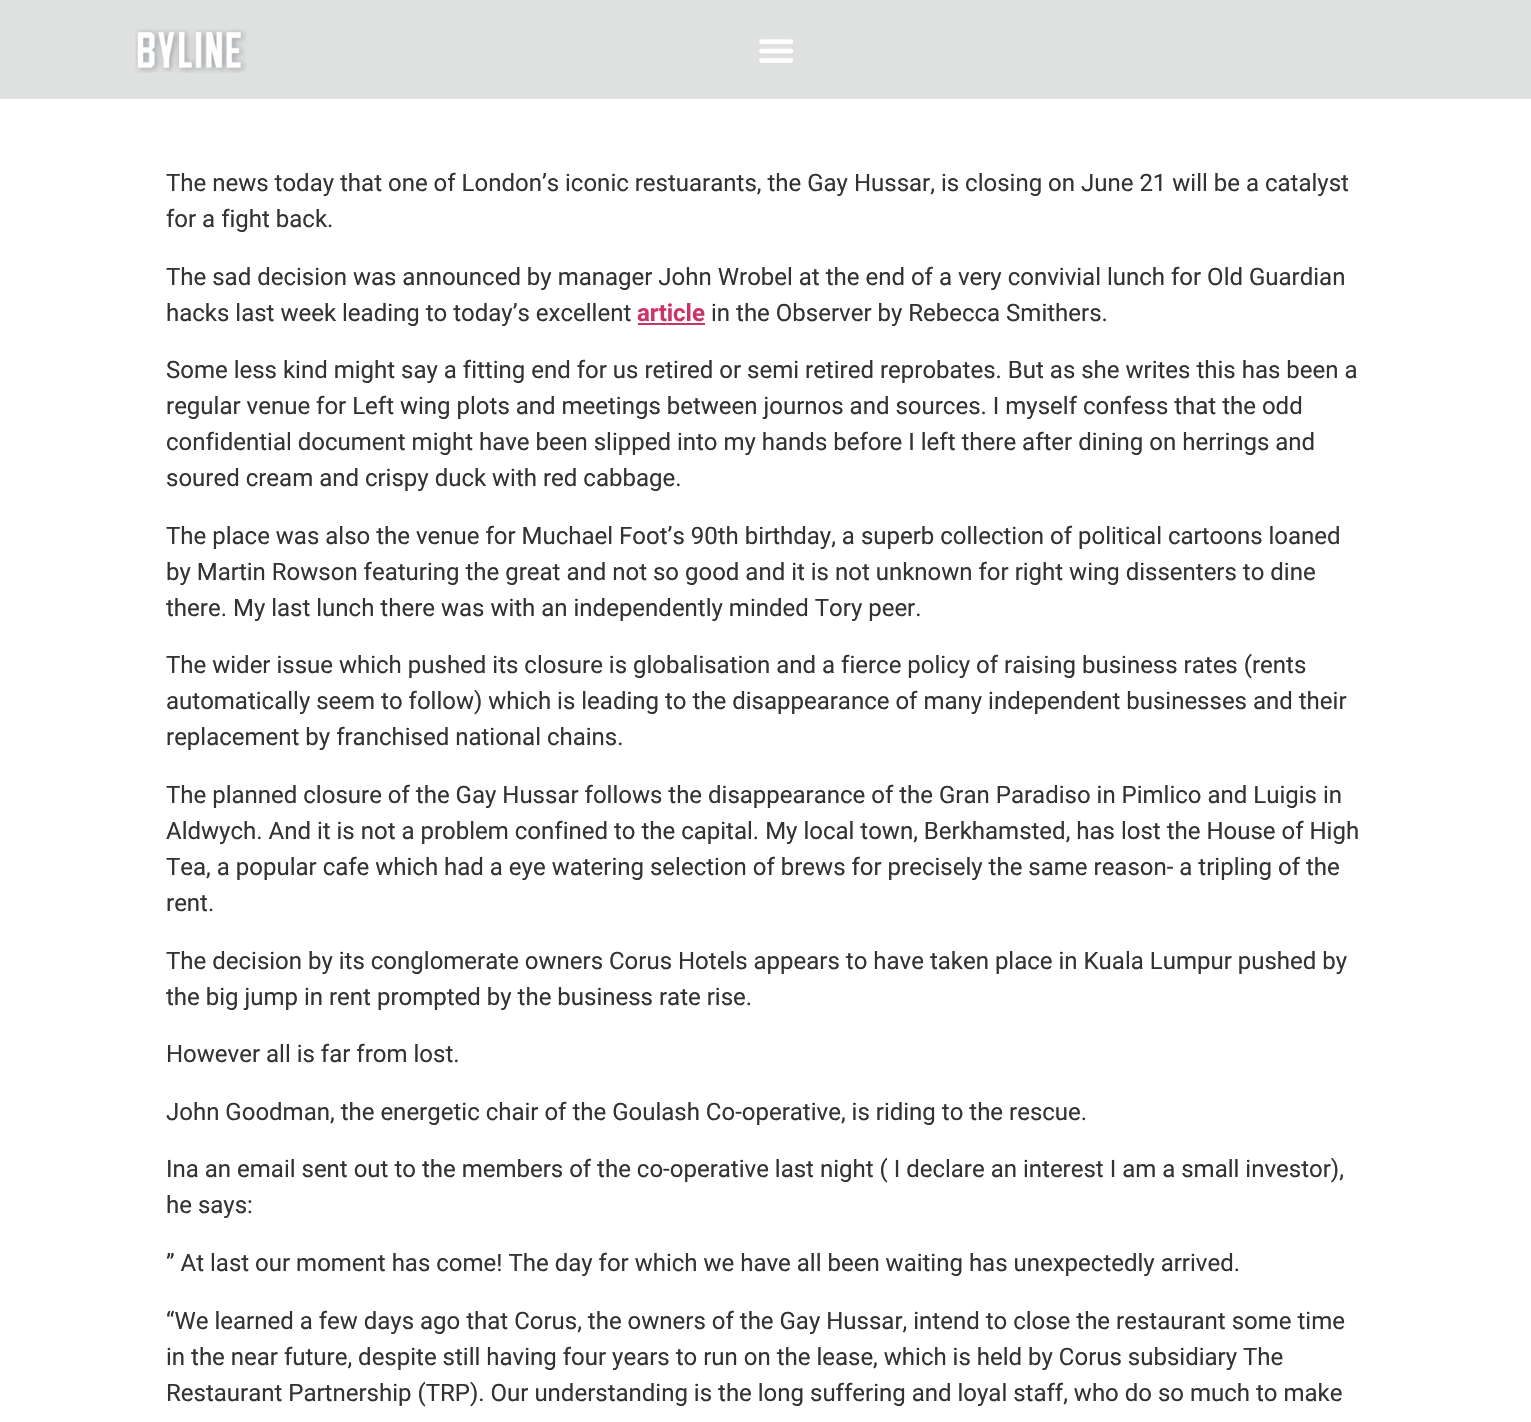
#include "include/core/SkBlurTypes.h"
#include "include/core/SkCanvas.h"
#include "include/core/SkData.h"
#include "include/core/SkFont.h"
#include "include/core/SkFontMgr.h"
#include "include/core/SkImage.h"
#include "include/core/SkMaskFilter.h"
#include "include/core/SkPaint.h"
#include "include/core/SkPathBuilder.h"
#include "include/core/SkTextBlob.h"
#include "include/effects/SkDashPathEffect.h"
#include "include/effects/SkGradientShader.h"
#include "include/utils/SkParsePath.h"

extern sk_sp<SkFontMgr> fontMgr;

static SkFont font(const char* family, int weight, float size, bool italic = false) {
    SkFontStyle style(weight, SkFontStyle::kNormal_Width,
        italic ? SkFontStyle::kItalic_Slant : SkFontStyle::kUpright_Slant);
    SkFont result(fontMgr->matchFamilyStyle(family, style), size);
    result.setSubpixel(true);
    return result;
}

static void drawLabel(SkCanvas* canvas, const char* s, float x, float y, const SkFont& font, SkColor color) {
    SkPaint ink(SkColor4f::FromColor(color));
    ink.setAntiAlias(true);
    canvas->drawString(s, x, y, font, ink);
}

static void fillRect(SkCanvas* canvas, float x, float y, float w, float h, SkColor color) {
    SkPaint ink(SkColor4f::FromColor(color));
    ink.setAntiAlias(true);
    canvas->drawRect(SkRect::MakeXYWH(x, y, w, h), ink);
}

static void drawPhoto(SkCanvas* canvas, const char* path, float x, float y, float w, float h) {
    auto image = SkImages::DeferredFromEncodedData(SkData::MakeFromFileName(path));
    canvas->drawImageRect(image, SkRect::MakeXYWH(x, y, w, h), SkSamplingOptions());
}

void draw(SkCanvas* canvas) {
    SkPaint paint;
    paint.setAntiAlias(true);
    canvas->clear(0xFFFFFFFF);
    fillRect(canvas, 0, 0, 1531, 99, 0xFFDFE0E0);
    drawPhoto(canvas, "assets/img1.png", 135, 29, 112, 44);
    drawPhoto(canvas, "assets/img2.png", 759, 39, 35, 24);
    SkFont font1 = font("Roboto", 400, 24);
    drawLabel(canvas, "The news today that one of London’s iconic restuarants, the Gay Hussar, is closing on June 21 will be a catalyst", 166, 191, font1, 0xFF333333);
    drawLabel(canvas, "for a fight back.", 166, 227, font1, 0xFF333333);
    drawLabel(canvas, "The sad decision was announced by manager John Wrobel at the end of a very convivial lunch for Old Guardian", 166, 285, font1, 0xFF333333);
    drawLabel(canvas, "hacks last week leading to today’s excellent", 166, 321, font1, 0xFF333333);
    SkFont font2 = font("Roboto", 700, 24);
    drawLabel(canvas, "article", 637, 321, font2, 0xFFCC3366);
    fillRect(canvas, 638, 323, 67, 2, 0xFFCC3366);
    drawLabel(canvas, "in the Observer by Rebecca Smithers.", 711, 321, font1, 0xFF333333);
    drawLabel(canvas, "Some less kind might say a fitting end for us retired or semi retired reprobates. But as she writes this has been a", 166, 378, font1, 0xFF333333);
    drawLabel(canvas, "regular venue for Left wing plots and meetings between journos and sources. I myself confess that the odd", 166, 414, font1, 0xFF333333);
    drawLabel(canvas, "confidential document might have been slipped into my hands before I left there after dining on herrings and", 166, 450, font1, 0xFF333333);
    drawLabel(canvas, "soured cream and crispy duck with red cabbage.", 166, 486, font1, 0xFF333333);
    drawLabel(canvas, "The place was also the venue for Muchael Foot’s 90th birthday, a superb collection of political cartoons loaned", 166, 544, font1, 0xFF333333);
    drawLabel(canvas, "by Martin Rowson featuring the great and not so good and it is not unknown for right wing dissenters to dine", 166, 580, font1, 0xFF333333);
    drawLabel(canvas, "there. My last lunch there was with an independently minded Tory peer.", 166, 616, font1, 0xFF333333);
    drawLabel(canvas, "The wider issue which pushed its closure is globalisation and a fierce policy of raising business rates (rents", 166, 673, font1, 0xFF333333);
    drawLabel(canvas, "automatically seem to follow) which is leading to the disappearance of many independent businesses and their", 166, 709, font1, 0xFF333333);
    drawLabel(canvas, "replacement by franchised national chains.", 166, 745, font1, 0xFF333333);
    drawLabel(canvas, "The planned closure of the Gay Hussar follows the disappearance of the Gran Paradiso in Pimlico and Luigis in", 166, 803, font1, 0xFF333333);
    drawLabel(canvas, "Aldwych. And it is not a problem confined to the capital. My local town, Berkhamsted, has lost the House of High", 166, 839, font1, 0xFF333333);
    drawLabel(canvas, "Tea, a popular cafe which had a eye watering selection of brews for precisely the same reason- a tripling of the", 166, 875, font1, 0xFF333333);
    drawLabel(canvas, "rent.", 166, 911, font1, 0xFF333333);
    drawLabel(canvas, "The decision by its conglomerate owners Corus Hotels appears to have taken place in Kuala Lumpur pushed by", 166, 969, font1, 0xFF333333);
    drawLabel(canvas, "the big jump in rent prompted by the business rate rise.", 166, 1005, font1, 0xFF333333);
    drawLabel(canvas, "However all is far from lost.", 166, 1062, font1, 0xFF333333);
    drawLabel(canvas, "John Goodman, the energetic chair of the Goulash Co-operative, is riding to the rescue.", 166, 1120, font1, 0xFF333333);
    drawLabel(canvas, "Ina an email sent out to the members of the co-operative last night ( I declare an interest I am a small investor),", 166, 1177, font1, 0xFF333333);
    drawLabel(canvas, "he says:", 166, 1213, font1, 0xFF333333);
    drawLabel(canvas, "” At last our moment has come! The day for which we have all been waiting has unexpectedly arrived.", 166, 1271, font1, 0xFF333333);
    drawLabel(canvas, "“We learned a few days ago that Corus, the owners of the Gay Hussar, intend to close the restaurant some time", 166, 1329, font1, 0xFF333333);
    drawLabel(canvas, "in the near future, despite still having four years to run on the lease, which is held by Corus subsidiary The", 166, 1365, font1, 0xFF333333);
    drawLabel(canvas, "Restaurant Partnership (TRP). Our understanding is the long suffering and loyal staff, who do so much to make", 166, 1401, font1, 0xFF333333);
}
